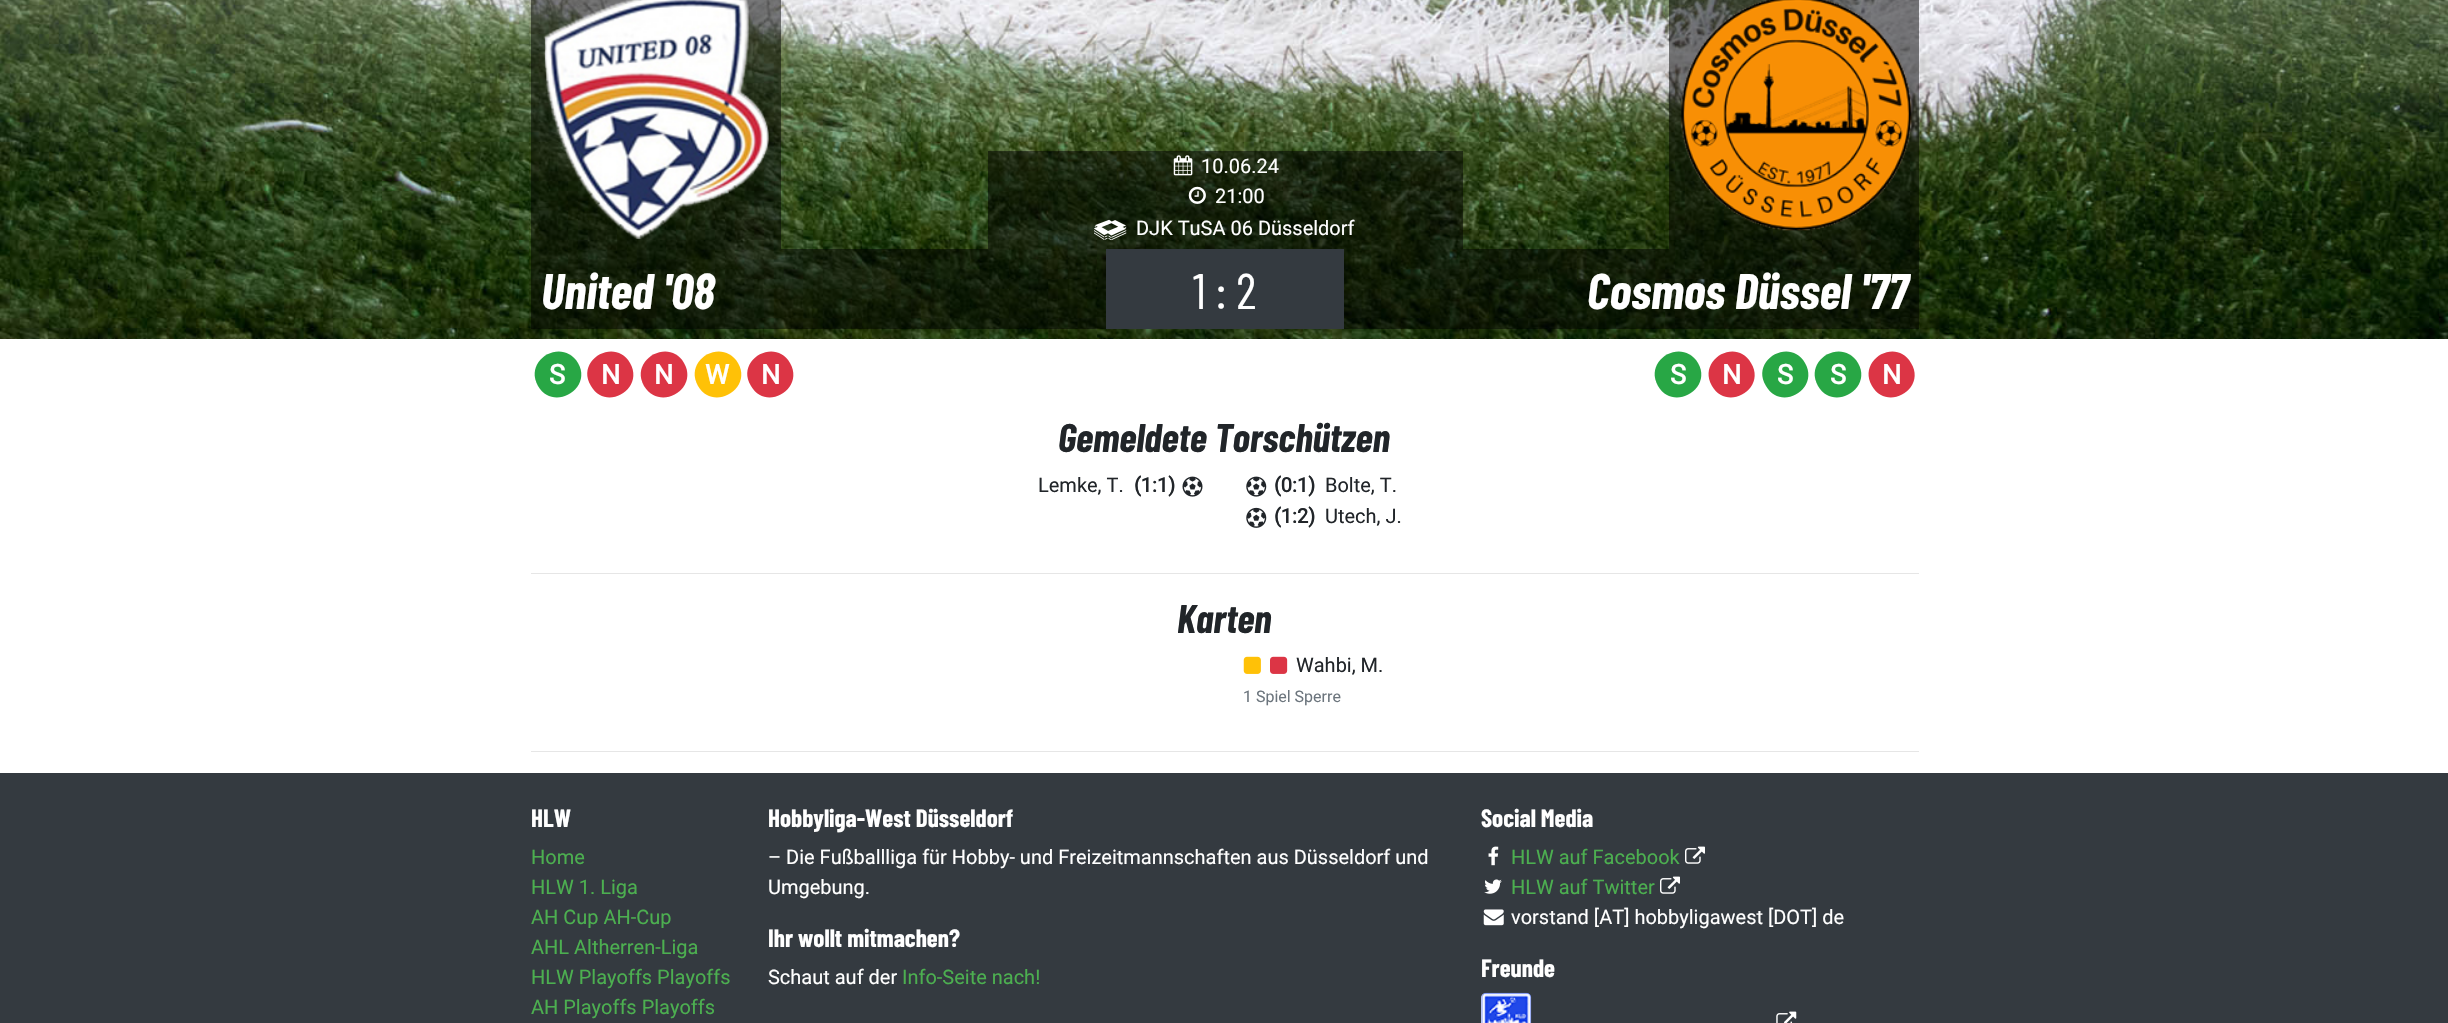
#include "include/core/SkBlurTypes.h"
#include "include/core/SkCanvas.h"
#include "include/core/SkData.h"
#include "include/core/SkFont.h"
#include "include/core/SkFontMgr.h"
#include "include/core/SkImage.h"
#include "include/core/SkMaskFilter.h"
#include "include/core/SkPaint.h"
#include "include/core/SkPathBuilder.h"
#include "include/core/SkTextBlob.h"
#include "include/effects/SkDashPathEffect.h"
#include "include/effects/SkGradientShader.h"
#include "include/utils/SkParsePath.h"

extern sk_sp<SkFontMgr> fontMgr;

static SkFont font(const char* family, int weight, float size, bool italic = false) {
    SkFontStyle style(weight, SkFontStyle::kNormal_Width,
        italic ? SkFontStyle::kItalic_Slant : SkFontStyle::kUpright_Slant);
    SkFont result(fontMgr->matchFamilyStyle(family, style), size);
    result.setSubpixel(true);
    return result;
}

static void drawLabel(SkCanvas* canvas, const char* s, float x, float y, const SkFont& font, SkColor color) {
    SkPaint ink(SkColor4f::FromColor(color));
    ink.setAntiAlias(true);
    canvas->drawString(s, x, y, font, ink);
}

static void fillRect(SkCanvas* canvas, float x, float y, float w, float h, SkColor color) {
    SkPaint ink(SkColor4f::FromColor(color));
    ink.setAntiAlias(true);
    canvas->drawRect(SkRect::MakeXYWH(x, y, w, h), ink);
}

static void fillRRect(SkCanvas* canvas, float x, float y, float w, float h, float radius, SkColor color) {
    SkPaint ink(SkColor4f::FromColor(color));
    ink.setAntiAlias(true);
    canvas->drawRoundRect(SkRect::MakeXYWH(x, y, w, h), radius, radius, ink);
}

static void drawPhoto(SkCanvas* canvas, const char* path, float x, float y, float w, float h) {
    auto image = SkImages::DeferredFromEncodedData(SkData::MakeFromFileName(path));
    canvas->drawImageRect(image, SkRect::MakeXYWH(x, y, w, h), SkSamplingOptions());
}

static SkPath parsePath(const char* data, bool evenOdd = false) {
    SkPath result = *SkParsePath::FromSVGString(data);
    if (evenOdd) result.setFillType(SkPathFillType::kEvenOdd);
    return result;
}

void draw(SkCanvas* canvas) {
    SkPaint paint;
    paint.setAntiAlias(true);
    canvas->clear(0xFFFFFFFF);
    drawPhoto(canvas, "assets/img1.png", 0, 0, 2448, 339);
    fillRect(canvas, 531, 0, 250, 249, 0x80000000);
    drawPhoto(canvas, "assets/img2.png", 543, 0, 226, 239);
    fillRect(canvas, 988, 151, 475, 60, 0x80000000);
    drawPhoto(canvas, "assets/img3.png", 1173, 155, 20, 21);
    SkFont font1 = font("Roboto", 400, 20);
    drawLabel(canvas, "10.06.24", 1201, 173, font1, 0xFFFFFFFF);
    drawPhoto(canvas, "assets/img4.png", 1188, 186, 18, 18);
    drawLabel(canvas, "21:00", 1215, 203, font1, 0xFFFFFFFF);
    fillRect(canvas, 988, 211, 475, 38, 0x80000000);
    drawPhoto(canvas, "assets/img5.png", 1094, 219, 33, 22);
    drawLabel(canvas, "DJK TuSA 06 Düsseldorf", 1136, 235, font1, 0xFFFFFFFF);
    fillRect(canvas, 1669, 0, 250, 249, 0x80000000);
    drawPhoto(canvas, "assets/img6.png", 1681, 0, 231, 231);
    fillRect(canvas, 531, 249, 575, 80, 0x80000000);
    SkFont font2 = font("Barlow Condensed", 700, 50, true);
    drawLabel(canvas, "United '08", 541, 309, font2, 0xFFFFFFFF);
    fillRect(canvas, 1106, 249, 238, 80, 0xFF343A40);
    SkFont font3 = font("Barlow Condensed", 400, 50);
    drawLabel(canvas, "1 : 2", 1193, 309, font3, 0xFFFFFFFF);
    fillRect(canvas, 1344, 249, 575, 80, 0x80000000);
    drawLabel(canvas, "Cosmos Düssel '77", 1587, 309, font2, 0xFFFFFFFF);
    paint.setColor(0xFF28A745);
    canvas->drawPath(parsePath("M578 363C593 389 553 412 538 386C523 360 562 337 578 363Z"), paint);
    SkFont font4 = font("Roboto", 700, 27);
    drawLabel(canvas, "S", 549, 384, font4, 0xFFFFFFFF);
    paint.setColor(0xFFDC3545);
    canvas->drawPath(parsePath("M630 363C645 389 606 412 591 386C575 360 615 337 630 363Z"), paint);
    drawLabel(canvas, "N", 601, 384, font4, 0xFFFFFFFF);
    canvas->drawPath(parsePath("M684 363C699 389 660 412 644 386C629 360 669 337 684 363Z"), paint);
    drawLabel(canvas, "N", 654, 384, font4, 0xFFFFFFFF);
    paint.setColor(0xFFFFC107);
    canvas->drawPath(parsePath("M738 363C753 389 713 412 698 386C683 360 722 337 738 363Z"), paint);
    drawLabel(canvas, "W", 705, 384, font4, 0xFFFFFFFF);
    paint.setColor(0xFFDC3545);
    canvas->drawPath(parsePath("M790 363C805 389 766 412 751 386C735 360 775 337 790 363Z"), paint);
    drawLabel(canvas, "N", 761, 384, font4, 0xFFFFFFFF);
    paint.setColor(0xFF28A745);
    canvas->drawPath(parsePath("M1698 363C1713 389 1673 412 1658 386C1643 360 1682 337 1698 363Z"), paint);
    drawLabel(canvas, "S", 1670, 384, font4, 0xFFFFFFFF);
    paint.setColor(0xFFDC3545);
    canvas->drawPath(parsePath("M1751 363C1767 389 1727 412 1712 386C1697 360 1736 337 1751 363Z"), paint);
    drawLabel(canvas, "N", 1722, 384, font4, 0xFFFFFFFF);
    paint.setColor(0xFF28A745);
    canvas->drawPath(parsePath("M1805 363C1820 389 1781 412 1766 386C1750 360 1790 337 1805 363Z"), paint);
    drawLabel(canvas, "S", 1777, 384, font4, 0xFFFFFFFF);
    canvas->drawPath(parsePath("M1858 363C1873 389 1833 412 1818 386C1803 360 1842 337 1858 363Z"), paint);
    drawLabel(canvas, "S", 1830, 384, font4, 0xFFFFFFFF);
    paint.setColor(0xFFDC3545);
    canvas->drawPath(parsePath("M1911 363C1927 389 1887 412 1872 386C1857 360 1896 337 1911 363Z"), paint);
    drawLabel(canvas, "N", 1882, 384, font4, 0xFFFFFFFF);
    SkFont font5 = font("Barlow Condensed", 700, 40, true);
    drawLabel(canvas, "Gemeldete Torschützen", 1058, 452, font5, 0xFF212529);
    drawLabel(canvas, "Lemke, T.", 1038, 492, font1, 0xFF212529);
    SkFont font6 = font("Roboto", 700, 20);
    drawLabel(canvas, "(1:1)", 1134, 492, font6, 0xFF212529);
    drawPhoto(canvas, "assets/img7.png", 1182, 476, 21, 21);
    drawPhoto(canvas, "assets/img8.png", 1246, 476, 21, 21);
    drawLabel(canvas, "(0:1)", 1274, 492, font6, 0xFF212529);
    drawLabel(canvas, "Bolte, T.", 1325, 492, font1, 0xFF212529);
    drawPhoto(canvas, "assets/img9.png", 1246, 507, 21, 21);
    drawLabel(canvas, "(1:2)", 1274, 523, font6, 0xFF212529);
    drawLabel(canvas, "Utech, J.", 1325, 523, font1, 0xFF212529);
    fillRect(canvas, 531, 573, 1388, 1, 0xFFE6E6E6);
    drawLabel(canvas, "Karten", 1177, 633, font5, 0xFF212529);
    drawPhoto(canvas, "assets/img10.png", 1243, 656, 18, 18);
    drawPhoto(canvas, "assets/img11.png", 1270, 656, 18, 18);
    drawLabel(canvas, "Wahbi, M.", 1296, 672, font1, 0xFF212529);
    SkFont font7 = font("Roboto", 400, 16);
    drawLabel(canvas, "1 Spiel Sperre", 1243, 702, font7, 0xFF6C757D);
    fillRect(canvas, 531, 751, 1388, 1, 0xFFE6E6E6);
    fillRect(canvas, 0, 773, 2448, 250, 0xFF343A40);
    SkFont font8 = font("Barlow Condensed", 700, 25);
    drawLabel(canvas, "HLW", 531, 827, font8, 0xFFFFFFFF);
    drawLabel(canvas, "Home", 531, 864, font1, 0xFF4CAF50);
    drawLabel(canvas, "HLW 1. Liga", 531, 894, font1, 0xFF4CAF50);
    drawLabel(canvas, "AH Cup AH-Cup", 531, 924, font1, 0xFF4CAF50);
    drawLabel(canvas, "AHL Altherren-Liga", 531, 954, font1, 0xFF4CAF50);
    drawLabel(canvas, "HLW Playoffs Playoffs", 531, 984, font1, 0xFF4CAF50);
    drawLabel(canvas, "AH Playoffs Playoffs", 531, 1014, font1, 0xFF4CAF50);
    drawLabel(canvas, "Hobbyliga-West Düsseldorf", 768, 827, font8, 0xFFFFFFFF);
    drawLabel(canvas, "– Die Fußballliga für Hobby- und Freizeitmannschaften aus Düsseldorf und", 768, 864, font1, 0xFFFFFFFF);
    drawLabel(canvas, "Umgebung.", 768, 894, font1, 0xFFFFFFFF);
    drawLabel(canvas, "Ihr wollt mitmachen?", 768, 947, font8, 0xFFFFFFFF);
    drawLabel(canvas, "Schaut auf der", 768, 984, font1, 0xFFFFFFFF);
    drawLabel(canvas, "Info-Seite nach!", 902, 984, font1, 0xFF4CAF50);
    drawLabel(canvas, "Social Media", 1481, 827, font8, 0xFFFFFFFF);
    drawPhoto(canvas, "assets/img12.png", 1488, 846, 11, 20);
    drawLabel(canvas, "HLW auf Facebook", 1511, 864, font1, 0xFF4CAF50);
    drawPhoto(canvas, "assets/img13.png", 1685, 846, 20, 18);
    drawPhoto(canvas, "assets/img14.png", 1484, 879, 18, 15);
    drawLabel(canvas, "HLW auf Twitter", 1511, 894, font1, 0xFF4CAF50);
    drawPhoto(canvas, "assets/img13.png", 1660, 876, 20, 18);
    drawPhoto(canvas, "assets/img15.png", 1483, 909, 21, 17);
    drawLabel(canvas, "vorstand [AT] hobbyligawest [DOT] de", 1511, 924, font1, 0xFFFFFFFF);
    drawLabel(canvas, "Freunde", 1481, 977, font8, 0xFFFFFFFF);
    fillRRect(canvas, 1481, 993, 50, 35, 5, 0xFFFFFFFF);
    drawPhoto(canvas, "assets/img16.png", 1481, 992, 51, 31);
    drawPhoto(canvas, "assets/img17.png", 1776, 1011, 21, 12);
}
